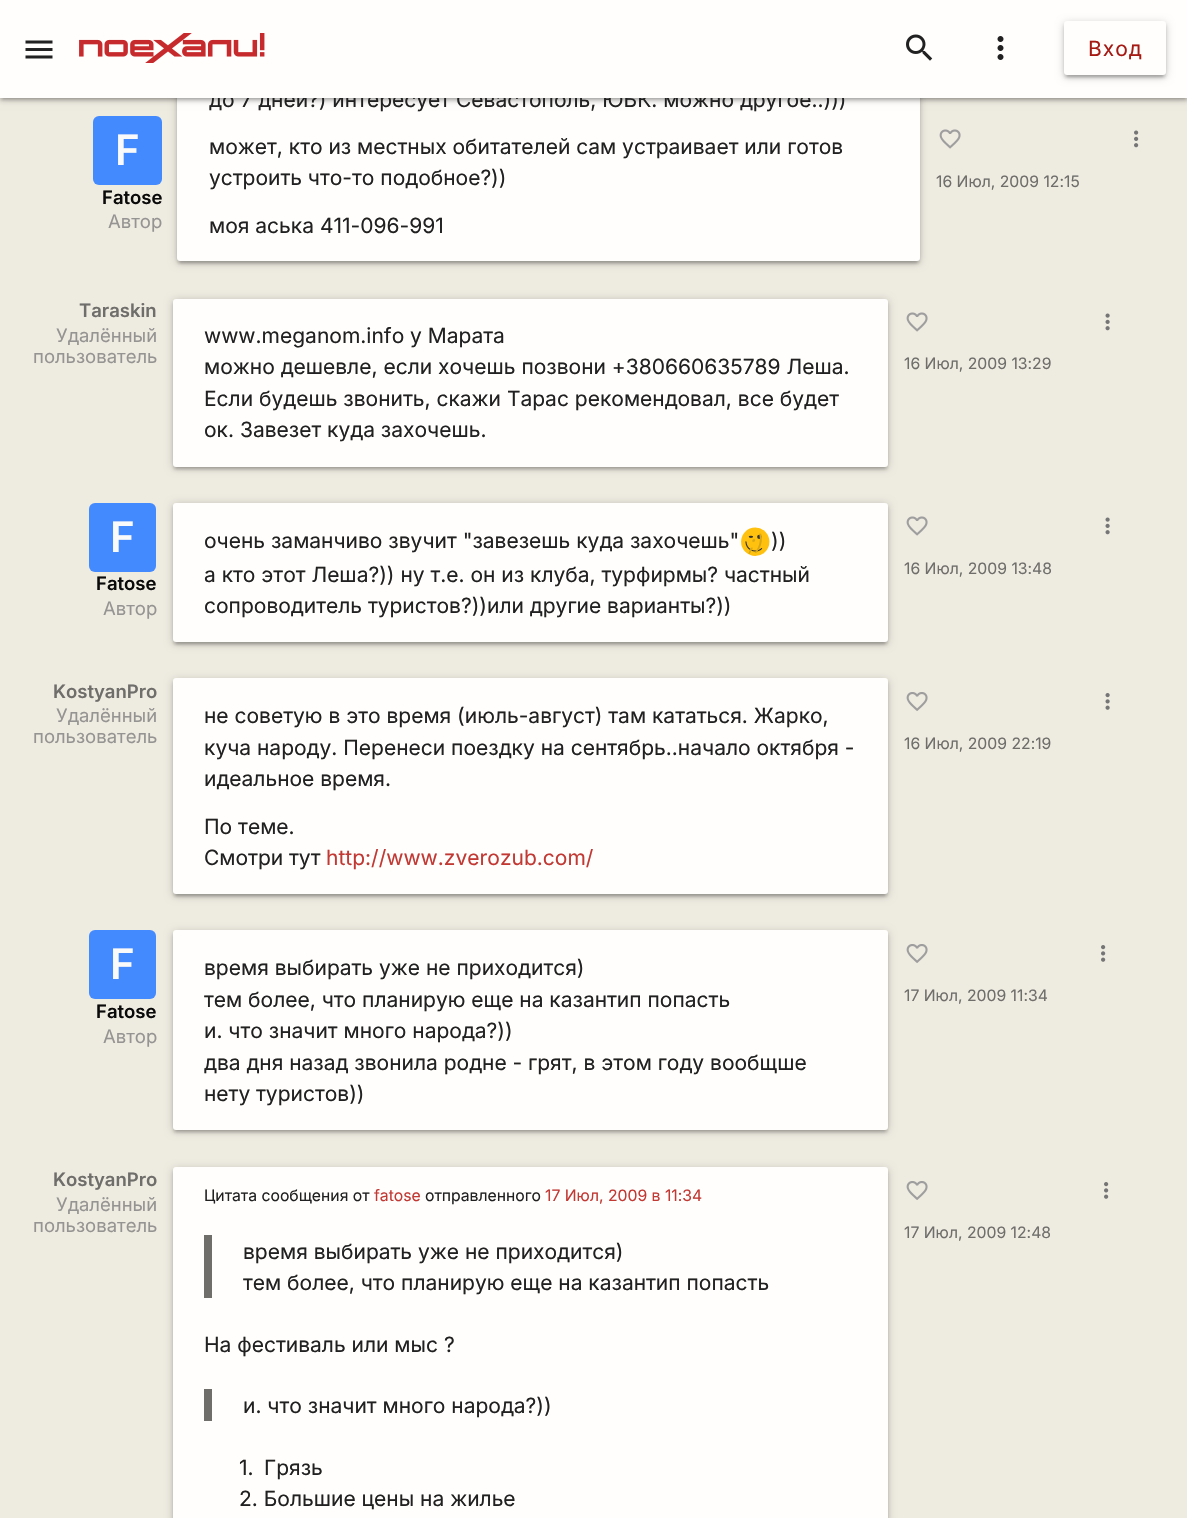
#include "include/core/SkBlurTypes.h"
#include "include/core/SkCanvas.h"
#include "include/core/SkData.h"
#include "include/core/SkFont.h"
#include "include/core/SkFontMgr.h"
#include "include/core/SkImage.h"
#include "include/core/SkMaskFilter.h"
#include "include/core/SkPaint.h"
#include "include/core/SkPathBuilder.h"
#include "include/core/SkTextBlob.h"
#include "include/effects/SkDashPathEffect.h"
#include "include/effects/SkGradientShader.h"
#include "include/utils/SkParsePath.h"

extern sk_sp<SkFontMgr> fontMgr;

static SkFont font(const char* family, int weight, float size, bool italic = false) {
    SkFontStyle style(weight, SkFontStyle::kNormal_Width,
        italic ? SkFontStyle::kItalic_Slant : SkFontStyle::kUpright_Slant);
    SkFont result(fontMgr->matchFamilyStyle(family, style), size);
    result.setSubpixel(true);
    return result;
}

static void drawLabel(SkCanvas* canvas, const char* s, float x, float y, const SkFont& font, SkColor color) {
    SkPaint ink(SkColor4f::FromColor(color));
    ink.setAntiAlias(true);
    canvas->drawString(s, x, y, font, ink);
}

static void drawTracked(SkCanvas* canvas, const char* s, float x, float y, const SkFont& font, const SkPaint& ink, float letter, float word) {
    std::vector<SkGlyphID> glyphs(font.countText(s, strlen(s), SkTextEncoding::kUTF8));
    std::vector<float> xs(glyphs.size());
    font.textToGlyphs(s, strlen(s), SkTextEncoding::kUTF8, glyphs);
    font.getXPos(glyphs, xs, x);
    float extra = 0;
    for (size_t i = 0; i < glyphs.size(); i++) {
        xs[i] += extra;
        extra += letter + word * (glyphs[i] == font.unicharToGlyph(' '));
    }
    canvas->drawTextBlob(SkTextBlob::MakeFromPosHGlyphs(glyphs, xs, y, font), 0, 0, ink);
}

static void fillRect(SkCanvas* canvas, float x, float y, float w, float h, SkColor color) {
    SkPaint ink(SkColor4f::FromColor(color));
    ink.setAntiAlias(true);
    canvas->drawRect(SkRect::MakeXYWH(x, y, w, h), ink);
}

static void fillRRect(SkCanvas* canvas, float x, float y, float w, float h, float radius, SkColor color) {
    SkPaint ink(SkColor4f::FromColor(color));
    ink.setAntiAlias(true);
    canvas->drawRoundRect(SkRect::MakeXYWH(x, y, w, h), radius, radius, ink);
}

static void drawPhoto(SkCanvas* canvas, const char* path, float x, float y, float w, float h) {
    auto image = SkImages::DeferredFromEncodedData(SkData::MakeFromFileName(path));
    canvas->drawImageRect(image, SkRect::MakeXYWH(x, y, w, h), SkSamplingOptions());
}

void draw(SkCanvas* canvas) {
    SkPaint paint;
    paint.setAntiAlias(true);
    canvas->clear(0xFFEEEBE1);
    paint.setColor(0x33000000);
    paint.setMaskFilter(SkMaskFilter::MakeBlur(kNormal_SkBlurStyle, 4));
    canvas->drawRoundRect(SkRect::MakeXYWH(177, 0, 743, 263), 3, 3, paint);
    paint.setMaskFilter(nullptr);
    paint.setColor(0x1F000000);
    paint.setMaskFilter(SkMaskFilter::MakeBlur(kNormal_SkBlurStyle, 1));
    canvas->drawRect(SkRect::MakeXYWH(180, 6, 737, 257), paint);
    paint.setMaskFilter(nullptr);
    paint.setColor(0x24000000);
    paint.setMaskFilter(SkMaskFilter::MakeBlur(kNormal_SkBlurStyle, 1.5f));
    canvas->drawRoundRect(SkRect::MakeXYWH(177, 2, 743, 262), 3, 3, paint);
    paint.setMaskFilter(nullptr);
    fillRRect(canvas, 177, -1, 743, 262, 3, 0xFFFFFEFC);
    paint.setColor(0x33000000);
    paint.setMaskFilter(SkMaskFilter::MakeBlur(kNormal_SkBlurStyle, 4));
    canvas->drawRect(SkRect::MakeXYWH(0, 2, 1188, 97), paint);
    paint.setMaskFilter(nullptr);
    paint.setColor(0x1F000000);
    paint.setMaskFilter(SkMaskFilter::MakeBlur(kNormal_SkBlurStyle, 1));
    canvas->drawRect(SkRect::MakeXYWH(3, 8, 1182, 91), paint);
    paint.setMaskFilter(nullptr);
    paint.setColor(0x24000000);
    paint.setMaskFilter(SkMaskFilter::MakeBlur(kNormal_SkBlurStyle, 1.5f));
    canvas->drawRect(SkRect::MakeXYWH(0, 3, 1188, 98), paint);
    paint.setMaskFilter(nullptr);
    SkFont font1 = font("Inter", 400, 21);
    drawLabel(canvas, "до 7 дней?) интересует Севастополь, ЮБК. можно другое..)))", 209, 107, font1, 0xFF212121);
    fillRect(canvas, 0, 0, 1187, 98, 0xFFFFFEFC);
    drawPhoto(canvas, "assets/img1.png", 25, 40, 28, 19);
    drawPhoto(canvas, "assets/img2.png", 79, 33, 186, 30);
    drawPhoto(canvas, "assets/img3.png", 906, 34, 27, 27);
    drawPhoto(canvas, "assets/img4.png", 997, 36, 7, 24);
    paint.setColor(0x33000000);
    paint.setMaskFilter(SkMaskFilter::MakeBlur(kNormal_SkBlurStyle, 4));
    canvas->drawRoundRect(SkRect::MakeXYWH(1064, 23, 102, 54), 3, 3, paint);
    paint.setMaskFilter(nullptr);
    paint.setColor(0x1F000000);
    paint.setMaskFilter(SkMaskFilter::MakeBlur(kNormal_SkBlurStyle, 1));
    canvas->drawRect(SkRect::MakeXYWH(1067, 29, 96, 48), paint);
    paint.setMaskFilter(nullptr);
    paint.setColor(0x24000000);
    paint.setMaskFilter(SkMaskFilter::MakeBlur(kNormal_SkBlurStyle, 1.5f));
    canvas->drawRoundRect(SkRect::MakeXYWH(1064, 24, 102, 54), 3, 3, paint);
    paint.setMaskFilter(nullptr);
    fillRRect(canvas, 1064, 21, 102, 54, 3, 0xFFFFFEFC);
    paint.setColor(0xFFA61A14);
    drawTracked(canvas, "Вход", 1088, 56, font1, paint, 1, 0);
    fillRRect(canvas, 93, 116, 69, 69, 6, 0xFF448AFF);
    SkFont font2 = font("Inter", 600, 42);
    drawLabel(canvas, "F", 115, 165, font2, 0xFFFAFAFA);
    SkFont font3 = font("Inter", 600, 18.5f);
    drawLabel(canvas, "Fatose", 102, 204, font3, 0xFF0A0A0A);
    SkFont font4 = font("Inter", 400, 18.5f);
    drawLabel(canvas, "Автор", 108, 228, font4, 0xFF969492);
    drawLabel(canvas, "может, кто из местных обитателей сам устраивает или готов", 209, 154, font1, 0xFF212121);
    drawLabel(canvas, "устроить что-то подобное?))", 209, 185, font1, 0xFF212121);
    drawLabel(canvas, "моя аська 411-096-991", 209, 233, font1, 0xFF212121);
    drawPhoto(canvas, "assets/img5.png", 1134, 130, 5, 18);
    drawPhoto(canvas, "assets/img6.png", 939, 129, 22, 20);
    SkFont font5 = font("Inter", 400, 15.75f);
    drawLabel(canvas, "16 Июл, 2009 12:15", 936, 187, font5, 0xFF706E6B);
    drawLabel(canvas, "Taraskin", 79, 317, font3, 0xFF706E6B);
    drawLabel(canvas, "Удалённый", 56, 342, font4, 0xFF969492);
    drawLabel(canvas, "пользователь", 33, 363, font4, 0xFF969492);
    paint.setColor(0x33000000);
    paint.setMaskFilter(SkMaskFilter::MakeBlur(kNormal_SkBlurStyle, 4));
    canvas->drawRoundRect(SkRect::MakeXYWH(173, 300, 715, 168), 3, 3, paint);
    paint.setMaskFilter(nullptr);
    paint.setColor(0x1F000000);
    paint.setMaskFilter(SkMaskFilter::MakeBlur(kNormal_SkBlurStyle, 1));
    canvas->drawRect(SkRect::MakeXYWH(176, 306, 709, 162), paint);
    paint.setMaskFilter(nullptr);
    paint.setColor(0x24000000);
    paint.setMaskFilter(SkMaskFilter::MakeBlur(kNormal_SkBlurStyle, 1.5f));
    canvas->drawRoundRect(SkRect::MakeXYWH(173, 302, 715, 168), 3, 3, paint);
    paint.setMaskFilter(nullptr);
    fillRRect(canvas, 173, 299, 715, 168, 3, 0xFFFFFEFC);
    drawLabel(canvas, "www.meganom.info у Марата", 204, 343, font1, 0xFF212121);
    drawLabel(canvas, "можно дешевле, если хочешь позвони +380660635789 Леша.", 204, 374, font1, 0xFF212121);
    drawLabel(canvas, "Если будешь звонить, скажи Тарас рекомендовал, все будет", 204, 406, font1, 0xFF212121);
    drawLabel(canvas, "ок. Завезет куда захочешь.", 204, 437, font1, 0xFF212121);
    drawPhoto(canvas, "assets/img7.png", 1105, 313, 5, 18);
    drawPhoto(canvas, "assets/img6.png", 906, 312, 22, 20);
    drawLabel(canvas, "16 Июл, 2009 13:29", 904, 369, font5, 0xFF706E6B);
    fillRRect(canvas, 89, 503, 67, 69, 6, 0xFF448AFF);
    drawLabel(canvas, "F", 110, 552, font2, 0xFFFAFAFA);
    drawLabel(canvas, "Fatose", 96, 590, font3, 0xFF0A0A0A);
    drawLabel(canvas, "Автор", 103, 615, font4, 0xFF969492);
    paint.setColor(0x33000000);
    paint.setMaskFilter(SkMaskFilter::MakeBlur(kNormal_SkBlurStyle, 4));
    canvas->drawRoundRect(SkRect::MakeXYWH(173, 504, 715, 140), 3, 3, paint);
    paint.setMaskFilter(nullptr);
    paint.setColor(0x1F000000);
    paint.setMaskFilter(SkMaskFilter::MakeBlur(kNormal_SkBlurStyle, 1));
    canvas->drawRect(SkRect::MakeXYWH(176, 510, 709, 134), paint);
    paint.setMaskFilter(nullptr);
    paint.setColor(0x24000000);
    paint.setMaskFilter(SkMaskFilter::MakeBlur(kNormal_SkBlurStyle, 1.5f));
    canvas->drawRoundRect(SkRect::MakeXYWH(173, 506, 715, 139), 3, 3, paint);
    paint.setMaskFilter(nullptr);
    fillRRect(canvas, 173, 503, 715, 139, 3, 0xFFFFFEFC);
    drawLabel(canvas, "очень заманчиво звучит \"завезешь куда захочешь\"", 204, 548, font1, 0xFF212121);
    drawPhoto(canvas, "assets/img8.png", 741, 527, 29, 29);
    SkFont font6 = font("Inter", 400, 21, true);
    drawLabel(canvas, ";)", 748, 550, font6, 0xFFDAA715);
    drawLabel(canvas, "))", 771, 548, font1, 0xFF212121);
    drawLabel(canvas, "а кто этот Леша?)) ну т.е. он из клуба, турфирмы? частный", 204, 582, font1, 0xFF212121);
    drawLabel(canvas, "сопроводитель туристов?))или другие варианты?))", 204, 613, font1, 0xFF212121);
    drawPhoto(canvas, "assets/img7.png", 1105, 517, 5, 18);
    drawPhoto(canvas, "assets/img6.png", 906, 516, 22, 20);
    drawLabel(canvas, "16 Июл, 2009 13:48", 904, 574, font5, 0xFF706E6B);
    drawLabel(canvas, "KostyanPro", 53, 698, font3, 0xFF706E6B);
    drawLabel(canvas, "Удалённый", 56, 722, font4, 0xFF969492);
    drawLabel(canvas, "пользователь", 33, 743, font4, 0xFF969492);
    paint.setColor(0x33000000);
    paint.setMaskFilter(SkMaskFilter::MakeBlur(kNormal_SkBlurStyle, 4));
    canvas->drawRoundRect(SkRect::MakeXYWH(173, 680, 715, 216), 3, 3, paint);
    paint.setMaskFilter(nullptr);
    paint.setColor(0x1F000000);
    paint.setMaskFilter(SkMaskFilter::MakeBlur(kNormal_SkBlurStyle, 1));
    canvas->drawRect(SkRect::MakeXYWH(176, 686, 709, 210), paint);
    paint.setMaskFilter(nullptr);
    paint.setColor(0x24000000);
    paint.setMaskFilter(SkMaskFilter::MakeBlur(kNormal_SkBlurStyle, 1.5f));
    canvas->drawRoundRect(SkRect::MakeXYWH(173, 681, 715, 216), 3, 3, paint);
    paint.setMaskFilter(nullptr);
    fillRRect(canvas, 173, 678, 715, 216, 3, 0xFFFFFEFC);
    drawLabel(canvas, "не советую в это время (июль-август) там кататься. Жарко,", 204, 723, font1, 0xFF212121);
    drawLabel(canvas, "куча народу. Перенеси поездку на сентябрь..начало октября -", 204, 755, font1, 0xFF212121);
    drawLabel(canvas, "идеальное время.", 204, 786, font1, 0xFF212121);
    drawLabel(canvas, "По теме.", 204, 834, font1, 0xFF212121);
    drawLabel(canvas, "Смотри тут", 204, 865, font1, 0xFF212121);
    drawLabel(canvas, "http://www.zverozub.com/", 326, 865, font1, 0xFFC23934);
    drawPhoto(canvas, "assets/img9.png", 1105, 693, 5, 17);
    drawPhoto(canvas, "assets/img10.png", 906, 692, 22, 19);
    drawLabel(canvas, "16 Июл, 2009 22:19", 904, 749, font5, 0xFF706E6B);
    fillRRect(canvas, 89, 930, 67, 69, 6, 0xFF448AFF);
    drawLabel(canvas, "F", 110, 979, font2, 0xFFFAFAFA);
    drawLabel(canvas, "Fatose", 96, 1018, font3, 0xFF0A0A0A);
    drawLabel(canvas, "Автор", 103, 1043, font4, 0xFF969492);
    paint.setColor(0x33000000);
    paint.setMaskFilter(SkMaskFilter::MakeBlur(kNormal_SkBlurStyle, 4));
    canvas->drawRoundRect(SkRect::MakeXYWH(173, 932, 715, 199), 3, 3, paint);
    paint.setMaskFilter(nullptr);
    paint.setColor(0x1F000000);
    paint.setMaskFilter(SkMaskFilter::MakeBlur(kNormal_SkBlurStyle, 1));
    canvas->drawRect(SkRect::MakeXYWH(176, 938, 709, 193), paint);
    paint.setMaskFilter(nullptr);
    paint.setColor(0x24000000);
    paint.setMaskFilter(SkMaskFilter::MakeBlur(kNormal_SkBlurStyle, 1.5f));
    canvas->drawRoundRect(SkRect::MakeXYWH(173, 933, 715, 200), 3, 3, paint);
    paint.setMaskFilter(nullptr);
    fillRRect(canvas, 173, 930, 715, 200, 3, 0xFFFFFEFC);
    drawLabel(canvas, "время выбирать уже не приходится)", 204, 975, font1, 0xFF212121);
    drawLabel(canvas, "тем более, что планирую еще на казантип попасть", 204, 1007, font1, 0xFF212121);
    drawLabel(canvas, "и. что значит много народа?))", 204, 1038, font1, 0xFF212121);
    drawLabel(canvas, "два дня назад звонила родне - грят, в этом году вообщше", 204, 1070, font1, 0xFF212121);
    drawLabel(canvas, "нету туристов))", 204, 1101, font1, 0xFF212121);
    drawPhoto(canvas, "assets/img11.png", 1101, 945, 5, 17);
    drawPhoto(canvas, "assets/img10.png", 906, 944, 22, 19);
    drawLabel(canvas, "17 Июл, 2009 11:34", 904, 1001, font5, 0xFF706E6B);
    drawLabel(canvas, "KostyanPro", 53, 1186, font3, 0xFF706E6B);
    drawLabel(canvas, "Удалённый", 56, 1211, font4, 0xFF969492);
    drawLabel(canvas, "пользователь", 33, 1232, font4, 0xFF969492);
    paint.setColor(0x33000000);
    paint.setMaskFilter(SkMaskFilter::MakeBlur(kNormal_SkBlurStyle, 4));
    canvas->drawRoundRect(SkRect::MakeXYWH(173, 1169, 715, 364), 3, 3, paint);
    paint.setMaskFilter(nullptr);
    paint.setColor(0x24000000);
    paint.setMaskFilter(SkMaskFilter::MakeBlur(kNormal_SkBlurStyle, 1.5f));
    canvas->drawRoundRect(SkRect::MakeXYWH(173, 1170, 715, 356), 3, 3, paint);
    paint.setMaskFilter(nullptr);
    fillRRect(canvas, 173, 1167, 715, 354, 3, 0xFFFFFEFC);
    drawLabel(canvas, "Цитата сообщения от", 204, 1201, font5, 0xFF212121);
    drawLabel(canvas, "fatose", 374, 1201, font5, 0xFFC23934);
    drawLabel(canvas, "отправленного", 425, 1201, font5, 0xFF212121);
    drawLabel(canvas, "17 Июл, 2009 в 11:34", 545, 1201, font5, 0xFFC23934);
    fillRect(canvas, 204, 1235, 8, 63, 0xFF706E6B);
    drawLabel(canvas, "время выбирать уже не приходится)", 243, 1259, font1, 0xFF212121);
    drawLabel(canvas, "тем более, что планирую еще на казантип попасть", 243, 1290, font1, 0xFF212121);
    drawLabel(canvas, "На фестиваль или мыс ?", 204, 1352, font1, 0xFF212121);
    fillRect(canvas, 204, 1389, 8, 32, 0xFF706E6B);
    drawLabel(canvas, "и. что значит много народа?))", 243, 1413, font1, 0xFF212121);
    drawLabel(canvas, "1.", 239, 1475, font1, 0xFF212121);
    drawLabel(canvas, "Грязь", 264, 1475, font1, 0xFF212121);
    drawLabel(canvas, "2. Большие цены на жилье", 239, 1506, font1, 0xFF212121);
    drawPhoto(canvas, "assets/img11.png", 1104, 1182, 5, 17);
    drawPhoto(canvas, "assets/img10.png", 906, 1181, 22, 19);
    drawLabel(canvas, "17 Июл, 2009 12:48", 904, 1238, font5, 0xFF706E6B);
}
